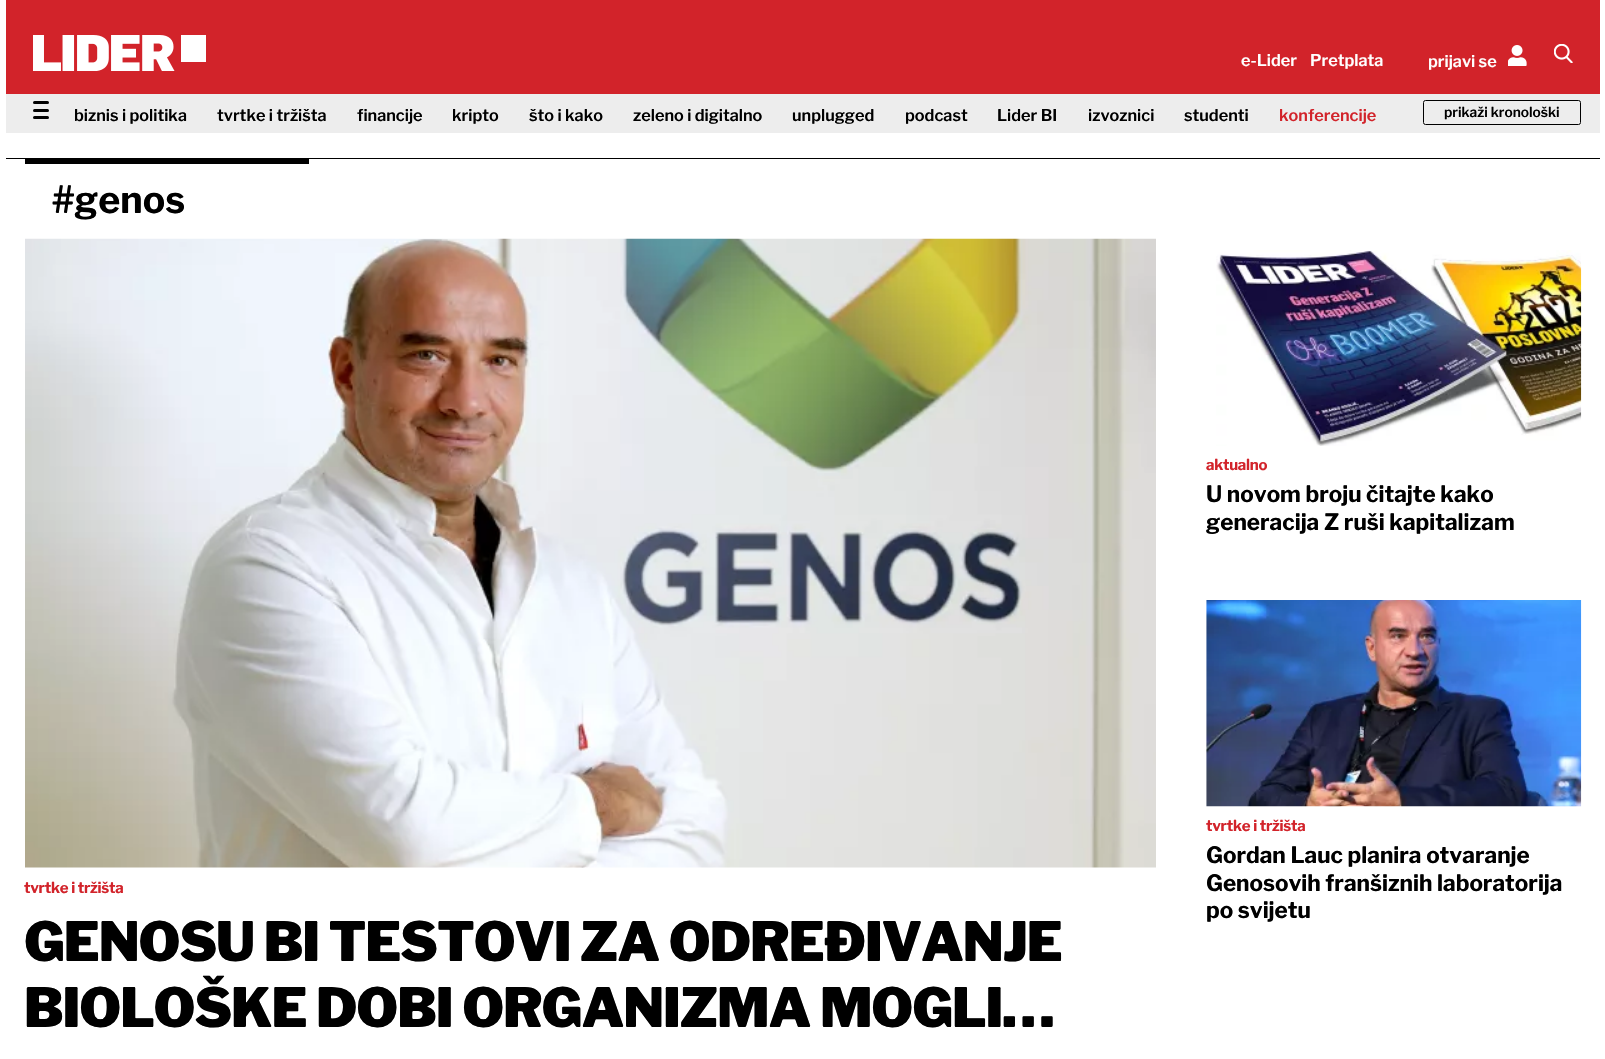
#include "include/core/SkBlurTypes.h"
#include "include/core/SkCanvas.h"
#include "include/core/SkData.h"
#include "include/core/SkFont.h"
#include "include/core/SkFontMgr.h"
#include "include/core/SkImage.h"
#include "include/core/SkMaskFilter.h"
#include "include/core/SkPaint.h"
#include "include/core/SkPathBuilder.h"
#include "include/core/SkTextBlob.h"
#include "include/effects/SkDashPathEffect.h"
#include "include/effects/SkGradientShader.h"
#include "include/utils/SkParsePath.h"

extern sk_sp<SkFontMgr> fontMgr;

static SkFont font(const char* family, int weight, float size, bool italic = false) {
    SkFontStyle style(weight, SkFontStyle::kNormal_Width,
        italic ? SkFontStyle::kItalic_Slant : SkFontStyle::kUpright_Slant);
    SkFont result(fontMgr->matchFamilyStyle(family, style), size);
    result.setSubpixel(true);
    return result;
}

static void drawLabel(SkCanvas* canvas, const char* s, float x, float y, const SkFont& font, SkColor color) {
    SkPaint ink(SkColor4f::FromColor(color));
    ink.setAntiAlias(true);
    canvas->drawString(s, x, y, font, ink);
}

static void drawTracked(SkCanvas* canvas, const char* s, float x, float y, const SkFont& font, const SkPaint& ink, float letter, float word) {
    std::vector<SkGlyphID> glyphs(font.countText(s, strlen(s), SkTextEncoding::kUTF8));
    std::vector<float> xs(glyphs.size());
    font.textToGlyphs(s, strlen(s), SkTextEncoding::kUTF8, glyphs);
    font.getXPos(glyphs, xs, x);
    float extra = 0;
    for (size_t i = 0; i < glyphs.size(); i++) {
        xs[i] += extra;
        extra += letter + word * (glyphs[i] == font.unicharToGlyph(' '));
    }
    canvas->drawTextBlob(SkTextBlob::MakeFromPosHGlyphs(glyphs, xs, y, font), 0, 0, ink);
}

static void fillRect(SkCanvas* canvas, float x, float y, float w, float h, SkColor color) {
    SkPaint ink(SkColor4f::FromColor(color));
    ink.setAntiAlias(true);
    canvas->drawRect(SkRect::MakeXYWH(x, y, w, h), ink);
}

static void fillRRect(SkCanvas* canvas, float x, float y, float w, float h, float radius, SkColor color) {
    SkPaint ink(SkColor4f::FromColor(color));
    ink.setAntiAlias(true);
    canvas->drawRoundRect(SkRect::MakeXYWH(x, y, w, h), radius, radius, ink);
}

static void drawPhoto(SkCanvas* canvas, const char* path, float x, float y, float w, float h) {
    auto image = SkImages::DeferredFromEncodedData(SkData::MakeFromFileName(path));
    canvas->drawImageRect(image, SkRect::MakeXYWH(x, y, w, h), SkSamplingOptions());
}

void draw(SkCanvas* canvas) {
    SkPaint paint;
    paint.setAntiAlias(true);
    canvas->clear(0xFFFFFFFF);
    fillRect(canvas, 6, 0, 1594, 94, 0xFFD2232A);
    drawPhoto(canvas, "assets/img1.png", 33, 35, 173, 36);
    SkFont font1 = font("Libre Franklin", 600, 16.25f);
    drawLabel(canvas, "e-Lider", 1241, 66, font1, 0xFFFFFFFF);
    drawLabel(canvas, "Pretplata", 1310, 66, font1, 0xFFFFFFFF);
    drawLabel(canvas, "prijavi se", 1428, 67, font1, 0xFFFFFFFF);
    drawPhoto(canvas, "assets/img2.png", 1508, 45, 19, 21);
    drawPhoto(canvas, "assets/img3.png", 1554, 44, 19, 19);
    fillRect(canvas, 6, 94, 1594, 39, 0xFFEDEDED);
    fillRRect(canvas, 33, 109, 16, 3, 1.5f, 0xFF000000);
    fillRRect(canvas, 33, 101, 16, 3, 1.5f, 0xFF000000);
    fillRRect(canvas, 33, 116, 16, 3, 1.5f, 0xFF000000);
    drawLabel(canvas, "biznis i politika", 74, 121, font1, 0xFF000000);
    drawLabel(canvas, "tvrtke i tržišta", 217, 121, font1, 0xFF000000);
    drawLabel(canvas, "financije", 357, 121, font1, 0xFF000000);
    drawLabel(canvas, "kripto", 452, 121, font1, 0xFF000000);
    drawLabel(canvas, "što i kako", 529, 121, font1, 0xFF000000);
    drawLabel(canvas, "zeleno i digitalno", 633, 121, font1, 0xFF000000);
    drawLabel(canvas, "unplugged", 792, 121, font1, 0xFF000000);
    drawLabel(canvas, "podcast", 905, 121, font1, 0xFF000000);
    drawLabel(canvas, "Lider BI", 997, 121, font1, 0xFF000000);
    drawLabel(canvas, "izvoznici", 1088, 121, font1, 0xFF000000);
    drawLabel(canvas, "studenti", 1184, 121, font1, 0xFF000000);
    drawLabel(canvas, "konferencije", 1279, 121, font1, 0xFFD2232A);
    paint.setStroke(true);
    paint.setStrokeWidth(1);
    paint.setColor(0xFF000000);
    canvas->drawRoundRect(SkRect::MakeXYWH(1423.5f, 100.5f, 157, 24), 2, 2, paint);
    SkFont font2 = font("Libre Franklin", 600, 13.75f);
    drawLabel(canvas, "prikaži kronološki", 1444, 117, font2, 0xFF000000);
    fillRect(canvas, 6, 158, 1594, 1, 0xFF000000);
    fillRect(canvas, 25, 159, 284, 5, 0xFF000000);
    SkFont font3 = font("Libre Franklin", 700, 37.5f);
    drawLabel(canvas, "#genos", 52, 213, font3, 0xFF000000);
    drawPhoto(canvas, "assets/img4.png", 1216, 250, 366, 196);
    SkFont font4 = font("Libre Franklin", 700, 15);
    paint.setStroke(false);
    paint.setColor(0xFFD2232A);
    drawTracked(canvas, "aktualno", 1206, 470, font4, paint, -0.25f, 0);
    SkFont font5 = font("Libre Franklin", 700, 22.5f);
    drawLabel(canvas, "U novom broju čitajte kako", 1206, 502, font5, 0xFF000000);
    drawLabel(canvas, "generacija Z ruši kapitalizam", 1206, 530, font5, 0xFF000000);
    drawPhoto(canvas, "assets/img5.png", 1206, 600, 376, 207);
    drawTracked(canvas, "tvrtke i tržišta", 1206, 831, font4, paint, -0.25f, 0);
    drawLabel(canvas, "Gordan Lauc planira otvaranje", 1206, 863, font5, 0xFF000000);
    drawLabel(canvas, "Genosovih franšiznih laboratorija", 1206, 891, font5, 0xFF000000);
    drawLabel(canvas, "po svijetu", 1206, 918, font5, 0xFF000000);
    drawPhoto(canvas, "assets/img6.png", 25, 238, 1131, 630);
    drawTracked(canvas, "tvrtke i tržišta", 24, 893, font4, paint, -0.25f, 0);
    SkFont font6 = font("Libre Franklin", 900, 53.75f);
    paint.setColor(0xFF000000);
    drawTracked(canvas, "GENOSU BI TESTOVI ZA ODREĐIVANJE", 24, 961, font6, paint, -1.1f, 0);
    drawTracked(canvas, "BIOLOŠKE DOBI ORGANIZMA MOGLI…", 24, 1027, font6, paint, -1.1f, 0);
}
